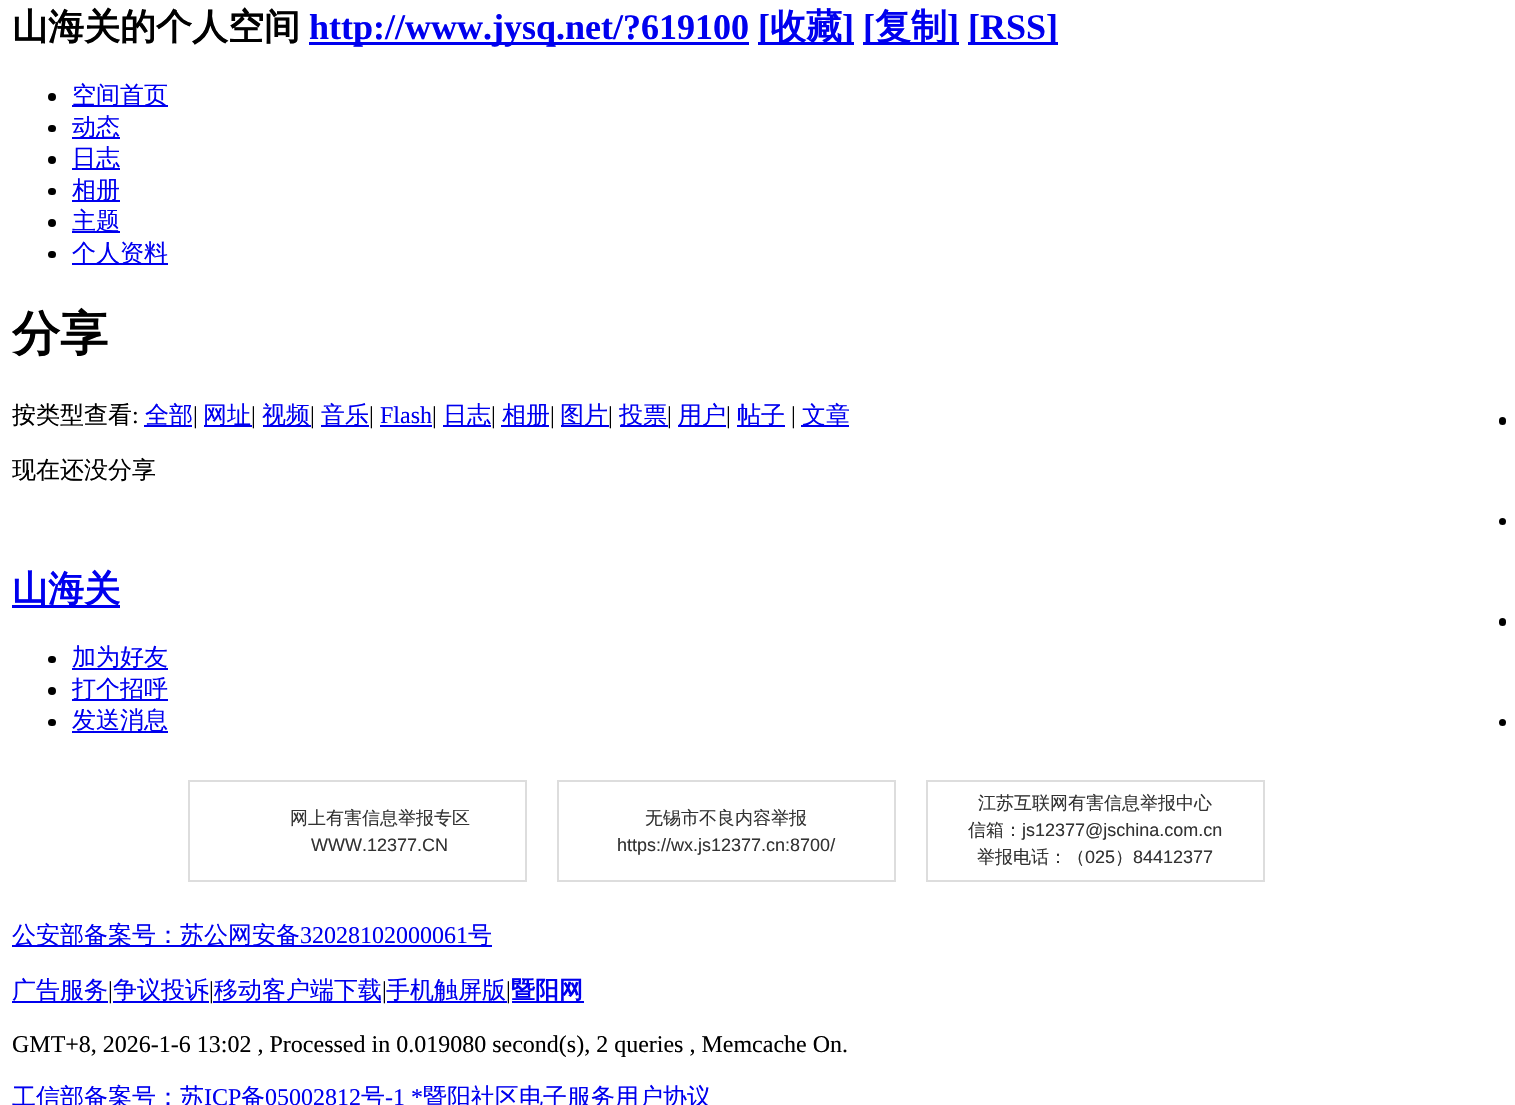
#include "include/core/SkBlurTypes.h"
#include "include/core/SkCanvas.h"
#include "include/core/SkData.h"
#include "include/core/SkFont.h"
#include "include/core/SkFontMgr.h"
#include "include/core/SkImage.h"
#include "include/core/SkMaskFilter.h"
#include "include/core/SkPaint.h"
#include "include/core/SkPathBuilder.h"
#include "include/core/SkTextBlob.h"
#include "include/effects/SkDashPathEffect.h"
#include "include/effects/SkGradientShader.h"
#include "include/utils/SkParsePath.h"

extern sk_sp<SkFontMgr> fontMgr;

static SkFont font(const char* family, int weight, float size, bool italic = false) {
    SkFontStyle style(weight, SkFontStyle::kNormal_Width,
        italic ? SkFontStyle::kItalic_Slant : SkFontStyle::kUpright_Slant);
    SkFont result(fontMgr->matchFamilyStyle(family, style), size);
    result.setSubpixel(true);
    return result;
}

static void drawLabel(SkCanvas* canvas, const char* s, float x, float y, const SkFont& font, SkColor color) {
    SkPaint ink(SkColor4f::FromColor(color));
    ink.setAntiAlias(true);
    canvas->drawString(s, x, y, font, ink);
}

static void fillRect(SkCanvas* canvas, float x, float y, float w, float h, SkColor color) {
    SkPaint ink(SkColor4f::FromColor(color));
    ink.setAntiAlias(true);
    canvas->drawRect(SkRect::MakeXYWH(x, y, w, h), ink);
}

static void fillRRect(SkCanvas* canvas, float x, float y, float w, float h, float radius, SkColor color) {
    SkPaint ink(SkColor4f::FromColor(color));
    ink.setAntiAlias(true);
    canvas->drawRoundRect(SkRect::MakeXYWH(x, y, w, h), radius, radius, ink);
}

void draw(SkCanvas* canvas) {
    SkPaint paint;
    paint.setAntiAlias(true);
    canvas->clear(0xFFFFFFFF);
    SkFont font1 = font("WenQuanYi Zen Hei", 700, 36);
    drawLabel(canvas, "山海关的个人空间", 12, 39, font1, 0xFF000000);
    fillRect(canvas, 309, 42, 440, 3, 0xFF0000EE);
    SkFont font2 = font("Liberation Serif", 700, 36);
    drawLabel(canvas, "http://www.jysq.net/?619100", 309, 39, font2, 0xFF0000EE);
    fillRect(canvas, 758, 42, 96, 3, 0xFF0000EE);
    drawLabel(canvas, "[", 758, 39, font2, 0xFF0000EE);
    drawLabel(canvas, "收藏", 770, 39, font1, 0xFF0000EE);
    drawLabel(canvas, "]", 842, 39, font2, 0xFF0000EE);
    fillRect(canvas, 863, 42, 96, 3, 0xFF0000EE);
    drawLabel(canvas, "[", 863, 39, font2, 0xFF0000EE);
    drawLabel(canvas, "复制", 875, 39, font1, 0xFF0000EE);
    drawLabel(canvas, "]", 947, 39, font2, 0xFF0000EE);
    fillRect(canvas, 968, 42, 90, 3, 0xFF0000EE);
    drawLabel(canvas, "[RSS]", 968, 39, font2, 0xFF0000EE);
    paint.setColor(0xFF000000);
    canvas->drawCircle(52, 97, 4, paint);
    fillRect(canvas, 72, 105, 96, 2, 0xFF0000EE);
    SkFont font3 = font("WenQuanYi Zen Hei", 500, 24);
    drawLabel(canvas, "空间首页", 72, 103, font3, 0xFF0000EE);
    fillRRect(canvas, 48, 125, 8, 7, 3.5f, 0xFF000000);
    fillRect(canvas, 72, 137, 48, 2, 0xFF0000EE);
    drawLabel(canvas, "动态", 72, 135, font3, 0xFF0000EE);
    canvas->drawCircle(52, 160, 4, paint);
    fillRect(canvas, 72, 168, 48, 2, 0xFF0000EE);
    drawLabel(canvas, "日志", 72, 166, font3, 0xFF0000EE);
    fillRRect(canvas, 48, 188, 8, 7, 3.5f, 0xFF000000);
    fillRect(canvas, 72, 200, 48, 2, 0xFF0000EE);
    drawLabel(canvas, "相册", 72, 198, font3, 0xFF0000EE);
    canvas->drawCircle(52, 223, 4, paint);
    fillRect(canvas, 72, 231, 48, 2, 0xFF0000EE);
    drawLabel(canvas, "主题", 72, 229, font3, 0xFF0000EE);
    fillRRect(canvas, 48, 251, 8, 7, 3.5f, 0xFF000000);
    fillRect(canvas, 72, 263, 96, 2, 0xFF0000EE);
    drawLabel(canvas, "个人资料", 72, 261, font3, 0xFF0000EE);
    SkFont font4 = font("WenQuanYi Zen Hei", 700, 48);
    drawLabel(canvas, "分享", 12, 350, font4, 0xFF000000);
    drawLabel(canvas, "按类型查看", 12, 423, font3, 0xFF000000);
    SkFont font5 = font("Liberation Serif", 400, 24);
    drawLabel(canvas, ":", 132, 423, font5, 0xFF000000);
    fillRect(canvas, 144, 425, 48, 2, 0xFF0000EE);
    drawLabel(canvas, "全部", 145, 423, font3, 0xFF0000EE);
    drawLabel(canvas, "|", 193, 423, font5, 0xFF000000);
    fillRect(canvas, 204, 425, 48, 2, 0xFF0000EE);
    drawLabel(canvas, "网址", 203, 423, font3, 0xFF0000EE);
    drawLabel(canvas, "|", 251, 423, font5, 0xFF000000);
    fillRect(canvas, 263, 425, 48, 2, 0xFF0000EE);
    drawLabel(canvas, "视频", 262, 423, font3, 0xFF0000EE);
    drawLabel(canvas, "|", 310, 423, font5, 0xFF000000);
    fillRect(canvas, 321, 425, 48, 2, 0xFF0000EE);
    drawLabel(canvas, "音乐", 321, 423, font3, 0xFF0000EE);
    drawLabel(canvas, "|", 369, 423, font5, 0xFF000000);
    drawLabel(canvas, "Flash", 380, 423, font5, 0xFF0000EE);
    fillRect(canvas, 380, 425, 52, 2, 0xFF0000EE);
    drawLabel(canvas, "|", 432, 423, font5, 0xFF000000);
    fillRect(canvas, 443, 425, 48, 2, 0xFF0000EE);
    drawLabel(canvas, "日志", 443, 423, font3, 0xFF0000EE);
    drawLabel(canvas, "|", 491, 423, font5, 0xFF000000);
    fillRect(canvas, 501, 425, 48, 2, 0xFF0000EE);
    drawLabel(canvas, "相册", 502, 423, font3, 0xFF0000EE);
    drawLabel(canvas, "|", 550, 423, font5, 0xFF000000);
    fillRect(canvas, 561, 425, 48, 2, 0xFF0000EE);
    drawLabel(canvas, "图片", 560, 423, font3, 0xFF0000EE);
    drawLabel(canvas, "|", 608, 423, font5, 0xFF000000);
    fillRect(canvas, 620, 425, 48, 2, 0xFF0000EE);
    drawLabel(canvas, "投票", 619, 423, font3, 0xFF0000EE);
    drawLabel(canvas, "|", 667, 423, font5, 0xFF000000);
    fillRect(canvas, 678, 425, 48, 2, 0xFF0000EE);
    drawLabel(canvas, "用户", 678, 423, font3, 0xFF0000EE);
    drawLabel(canvas, "|", 726, 423, font5, 0xFF000000);
    fillRect(canvas, 737, 425, 48, 2, 0xFF0000EE);
    drawLabel(canvas, "帖子", 737, 423, font3, 0xFF0000EE);
    drawLabel(canvas, "|", 791, 423, font5, 0xFF000000);
    fillRect(canvas, 801, 425, 48, 2, 0xFF0000EE);
    drawLabel(canvas, "文章", 802, 423, font3, 0xFF0000EE);
    drawLabel(canvas, "现在还没分享", 12, 478, font3, 0xFF000000);
    fillRect(canvas, 12, 605, 108, 3, 0xFF0000EE);
    drawLabel(canvas, "山海关", 12, 601, font1, 0xFF0000EE);
    fillRRect(canvas, 48, 656, 8, 7, 3.5f, 0xFF000000);
    fillRect(canvas, 72, 668, 96, 2, 0xFF0000EE);
    drawLabel(canvas, "加为好友", 72, 665, font3, 0xFF0000EE);
    canvas->drawCircle(52, 691, 4, paint);
    fillRect(canvas, 72, 699, 96, 2, 0xFF0000EE);
    drawLabel(canvas, "打个招呼", 72, 697, font3, 0xFF0000EE);
    fillRRect(canvas, 48, 719, 8, 7, 3.5f, 0xFF000000);
    fillRect(canvas, 72, 731, 96, 2, 0xFF0000EE);
    drawLabel(canvas, "发送消息", 72, 728, font3, 0xFF0000EE);
    fillRRect(canvas, 1499, 417, 7, 8, 3.5f, 0xFF000000);
    canvas->drawCircle(1502.5f, 521.5f, 3.5f, paint);
    fillRRect(canvas, 1499, 618, 7, 8, 3.5f, 0xFF000000);
    canvas->drawCircle(1502.5f, 722.5f, 3.5f, paint);
    paint.setStroke(true);
    paint.setStrokeWidth(2);
    paint.setColor(0xFFDDDDDD);
    canvas->drawRect(SkRect::MakeXYWH(189, 781, 337, 100), paint);
    SkFont font6 = font("WenQuanYi Zen Hei", 500, 18);
    drawLabel(canvas, "网上有害信息举报专区", 290, 824, font6, 0xFF333333);
    SkFont font7 = font("Liberation Sans", 400, 18);
    drawLabel(canvas, "WWW.12377.CN", 311, 851, font7, 0xFF333333);
    canvas->drawRect(SkRect::MakeXYWH(558, 781, 337, 100), paint);
    drawLabel(canvas, "无锡市不良内容举报", 645, 824, font6, 0xFF333333);
    drawLabel(canvas, "https://wx.js12377.cn:8700/", 617, 851, font7, 0xFF333333);
    canvas->drawRect(SkRect::MakeXYWH(927, 781, 337, 100), paint);
    drawLabel(canvas, "江苏互联网有害信息举报中心", 978, 809, font6, 0xFF333333);
    drawLabel(canvas, "信箱：", 968, 836, font6, 0xFF333333);
    drawLabel(canvas, "js12377@jschina.com.cn", 1022, 836, font7, 0xFF333333);
    drawLabel(canvas, "举报电话：（", 977, 863, font6, 0xFF333333);
    drawLabel(canvas, "025", 1085, 863, font7, 0xFF333333);
    drawLabel(canvas, "）", 1115, 863, font6, 0xFF333333);
    drawLabel(canvas, "84412377", 1133, 863, font7, 0xFF333333);
    fillRect(canvas, 12, 945, 480, 2, 0xFF0000EE);
    drawLabel(canvas, "公安部备案号：苏公网安备", 12, 943, font3, 0xFF0000EE);
    drawLabel(canvas, "32028102000061", 300, 943, font5, 0xFF0000EE);
    drawLabel(canvas, "号", 468, 943, font3, 0xFF0000EE);
    fillRect(canvas, 12, 1001, 96, 2, 0xFF0000EE);
    drawLabel(canvas, "广告服务", 12, 998, font3, 0xFF0000EE);
    drawLabel(canvas, "|", 108, 998, font5, 0xFF000000);
    fillRect(canvas, 113, 1001, 96, 2, 0xFF0000EE);
    drawLabel(canvas, "争议投诉", 113, 998, font3, 0xFF0000EE);
    drawLabel(canvas, "|", 209, 998, font5, 0xFF000000);
    fillRect(canvas, 213, 1001, 168, 2, 0xFF0000EE);
    drawLabel(canvas, "移动客户端下载", 214, 998, font3, 0xFF0000EE);
    drawLabel(canvas, "|", 382, 998, font5, 0xFF000000);
    fillRect(canvas, 387, 1001, 120, 2, 0xFF0000EE);
    drawLabel(canvas, "手机触屏版", 386, 998, font3, 0xFF0000EE);
    drawLabel(canvas, "|", 506, 998, font5, 0xFF000000);
    fillRect(canvas, 512, 1001, 72, 2, 0xFF0000EE);
    SkFont font8 = font("WenQuanYi Zen Hei", 700, 24);
    drawLabel(canvas, "暨阳网", 511, 998, font8, 0xFF0000EE);
    drawLabel(canvas, "GMT+8, 2026-1-6 13:02 , Processed in 0.019080 second(s), 2 queries , Memcache On.", 12, 1052, font5, 0xFF000000);
    drawLabel(canvas, "工信部备案号：苏", 12, 1105, font3, 0xFF0000EE);
    drawLabel(canvas, "ICP", 204, 1105, font5, 0xFF0000EE);
    drawLabel(canvas, "备", 241, 1105, font3, 0xFF0000EE);
    drawLabel(canvas, "05002812", 265, 1105, font5, 0xFF0000EE);
    drawLabel(canvas, "号", 361, 1105, font3, 0xFF0000EE);
    drawLabel(canvas, "-1 *", 385, 1105, font5, 0xFF0000EE);
    drawLabel(canvas, "暨阳社区电子服务用户协议", 423, 1105, font3, 0xFF0000EE);
}
